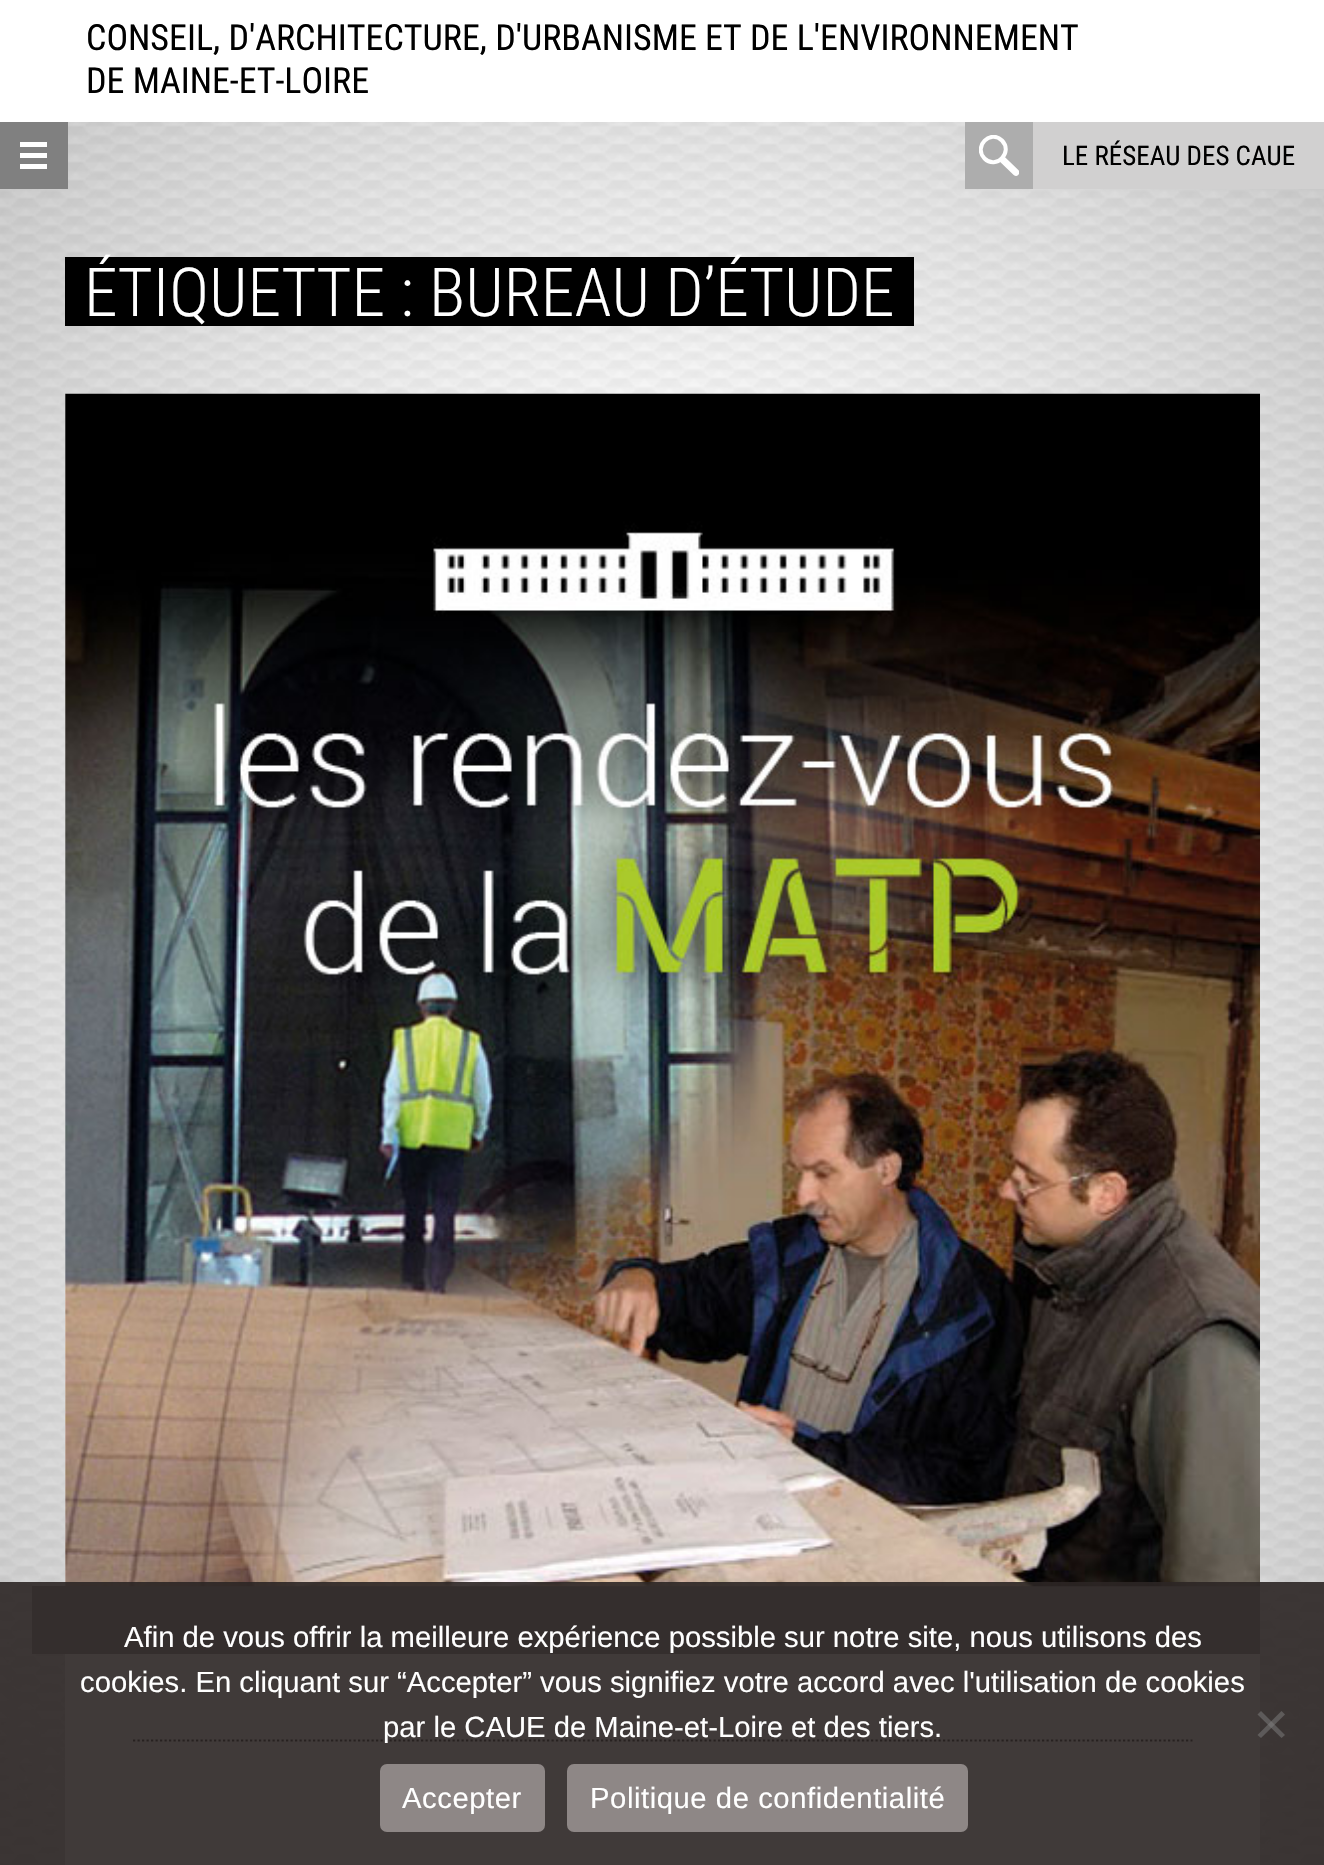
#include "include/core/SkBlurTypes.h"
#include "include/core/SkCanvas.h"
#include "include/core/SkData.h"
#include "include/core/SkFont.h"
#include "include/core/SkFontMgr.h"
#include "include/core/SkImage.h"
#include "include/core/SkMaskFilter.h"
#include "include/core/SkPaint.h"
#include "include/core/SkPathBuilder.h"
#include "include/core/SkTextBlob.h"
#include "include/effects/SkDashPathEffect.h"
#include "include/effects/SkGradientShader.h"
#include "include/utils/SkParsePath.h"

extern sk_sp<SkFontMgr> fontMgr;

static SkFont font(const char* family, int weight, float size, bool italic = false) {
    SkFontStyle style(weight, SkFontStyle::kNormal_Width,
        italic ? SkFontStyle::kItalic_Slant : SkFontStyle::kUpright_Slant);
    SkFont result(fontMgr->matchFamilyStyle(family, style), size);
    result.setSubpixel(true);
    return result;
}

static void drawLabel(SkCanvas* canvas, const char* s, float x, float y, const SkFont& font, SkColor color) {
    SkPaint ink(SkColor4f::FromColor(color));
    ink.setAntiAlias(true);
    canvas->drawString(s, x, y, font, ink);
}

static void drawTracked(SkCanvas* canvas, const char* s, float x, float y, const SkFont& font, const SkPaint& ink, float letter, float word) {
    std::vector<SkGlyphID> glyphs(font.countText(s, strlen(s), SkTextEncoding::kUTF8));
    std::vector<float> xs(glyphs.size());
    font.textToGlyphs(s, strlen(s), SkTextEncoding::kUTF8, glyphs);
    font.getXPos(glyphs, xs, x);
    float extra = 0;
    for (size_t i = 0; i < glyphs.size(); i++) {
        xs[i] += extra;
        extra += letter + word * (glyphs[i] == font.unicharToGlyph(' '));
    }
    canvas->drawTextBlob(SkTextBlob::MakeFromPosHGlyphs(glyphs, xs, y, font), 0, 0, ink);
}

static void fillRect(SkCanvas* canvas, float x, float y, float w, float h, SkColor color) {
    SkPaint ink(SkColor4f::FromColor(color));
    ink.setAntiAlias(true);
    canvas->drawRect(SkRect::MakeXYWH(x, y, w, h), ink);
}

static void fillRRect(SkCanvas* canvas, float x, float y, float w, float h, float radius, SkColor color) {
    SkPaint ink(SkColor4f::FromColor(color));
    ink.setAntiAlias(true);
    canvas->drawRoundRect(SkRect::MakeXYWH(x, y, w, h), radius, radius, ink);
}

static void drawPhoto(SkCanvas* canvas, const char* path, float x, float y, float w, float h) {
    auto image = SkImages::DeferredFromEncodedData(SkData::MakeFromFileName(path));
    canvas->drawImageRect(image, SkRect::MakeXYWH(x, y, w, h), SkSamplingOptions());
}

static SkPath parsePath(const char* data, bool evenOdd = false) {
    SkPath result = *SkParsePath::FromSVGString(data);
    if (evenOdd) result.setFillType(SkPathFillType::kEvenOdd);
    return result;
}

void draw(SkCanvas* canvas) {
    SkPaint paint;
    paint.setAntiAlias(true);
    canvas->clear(0xFFFFFFFF);
    {
        const SkColor colors[] = {0xFFFFFFFF, 0xFF999999};
        const float stops[] = {0.33f, 1};
        SkMatrix m = SkMatrix::Translate(663, 933).preScale(937, 1319);
        paint.setShader(SkGradientShader::MakeRadial({0, 0}, 1, colors, stops, 2, SkTileMode::kClamp, 0, &m));
        paint.setAlpha(255);
    }
    canvas->drawRect(SkRect::MakeXYWH(0, 122, 1324, 1743), paint);
    drawPhoto(canvas, "assets/img1.png", 0, 122, 1324, 1743);
    SkFont font1 = font("Roboto Condensed", 400, 36);
    drawLabel(canvas, "CONSEIL, D'ARCHITECTURE, D'URBANISME ET DE L'ENVIRONNEMENT", 86, 50, font1, 0xFF000000);
    drawLabel(canvas, "DE MAINE-ET-LOIRE", 86, 93, font1, 0xFF000000);
    fillRect(canvas, 0, 122, 68, 67, 0xFF808080);
    fillRect(canvas, 20, 153, 27, 5, 0xFFFFFFFF);
    fillRect(canvas, 20, 142, 27, 5, 0xFFFFFFFF);
    fillRect(canvas, 20, 164, 27, 5, 0xFFFFFFFF);
    fillRect(canvas, 965, 122, 68, 67, 0xFFADADAD);
    canvas->save();
    canvas->clipRect(SkRect::MakeXYWH(979, 135, 40, 43));
    paint.setStroke(true);
    paint.setStrokeWidth(4);
    paint.setShader(nullptr);
    paint.setColor(0xFFFFFFFF);
    canvas->drawPath(parsePath("M1002 140.5C1013.5 152.5 996 170 984.5 158.5C973 146.5 990.5 129 1002 140.5Z"), paint);
    paint.setStrokeWidth(6.7f);
    paint.setStrokeCap(SkPaint::kRound_Cap);
    canvas->drawPath(parsePath("M1016 172.5L1002.5 159.5"), paint);
    canvas->restore();
    fillRect(canvas, 1033, 122, 291, 67, 0xFFD1D0D0);
    SkFont font2 = font("Roboto Condensed", 400, 27);
    drawLabel(canvas, "LE RÉSEAU DES CAUE", 1062, 165, font2, 0xFF000000);
    fillRect(canvas, 65, 257, 849, 69, 0xFF000000);
    SkFont font3 = font("Roboto Condensed", 300, 67.5f);
    drawLabel(canvas, "ÉTIQUETTE : BUREAU D’ÉTUDE", 84, 316, font3, 0xFFFFFFFF);
    fillRect(canvas, 65, 394, 1195, 1471, 0xFFFFFFFF);
    fillRect(canvas, 32, 1586, 1228, 68, 0xFF808080);
    drawPhoto(canvas, "assets/img2.png", 65, 393, 1195, 1194);
    paint.setStrokeWidth(2.2f);
    paint.setStrokeCap(SkPaint::kButt_Cap);
    paint.setColor(0xFF000000);
    paint.setPathEffect(SkDashPathEffect::Make({{2.25f, 2.25f}}, 0));
    canvas->drawPath(parsePath("M133 1740.5H1192.5"), paint);
    paint.setPathEffect(nullptr);
    fillRect(canvas, 0, 1582, 1324, 283, 0xE62B2523);
    SkFont font4 = font("Liberation Sans", 400, 29.25f);
    drawLabel(canvas, "Afin de vous offrir la meilleure expérience possible sur notre site, nous utilisons des", 124, 1647, font4, 0xFFFFFFFF);
    drawLabel(canvas, "cookies. En cliquant sur “Accepter” vous signifiez votre accord avec l'utilisation de cookies", 80, 1692, font4, 0xFFFFFFFF);
    drawLabel(canvas, "par le CAUE de Maine-et-Loire et des tiers.", 383, 1737, font4, 0xFFFFFFFF);
    paint.setStroke(false);
    paint.setColor(0x80808080);
    canvas->drawPath(parsePath("M1281.5 1711L1285 1714.5L1261 1738L1257.5 1735Z"), paint);
    canvas->drawPath(parsePath("M1257.5 1714.5L1261 1711L1285 1735L1281.5 1738Z"), paint);
    fillRRect(canvas, 380, 1764, 165, 68, 7, 0xFF8E8786);
    paint.setColor(0xFFFFFFFF);
    drawTracked(canvas, "Accepter", 402, 1808, font4, paint, 0.55f, 0);
    fillRRect(canvas, 567, 1764, 401, 68, 7, 0xFF8E8786);
    drawTracked(canvas, "Politique de confidentialité", 590, 1808, font4, paint, 0.55f, 0);
}
